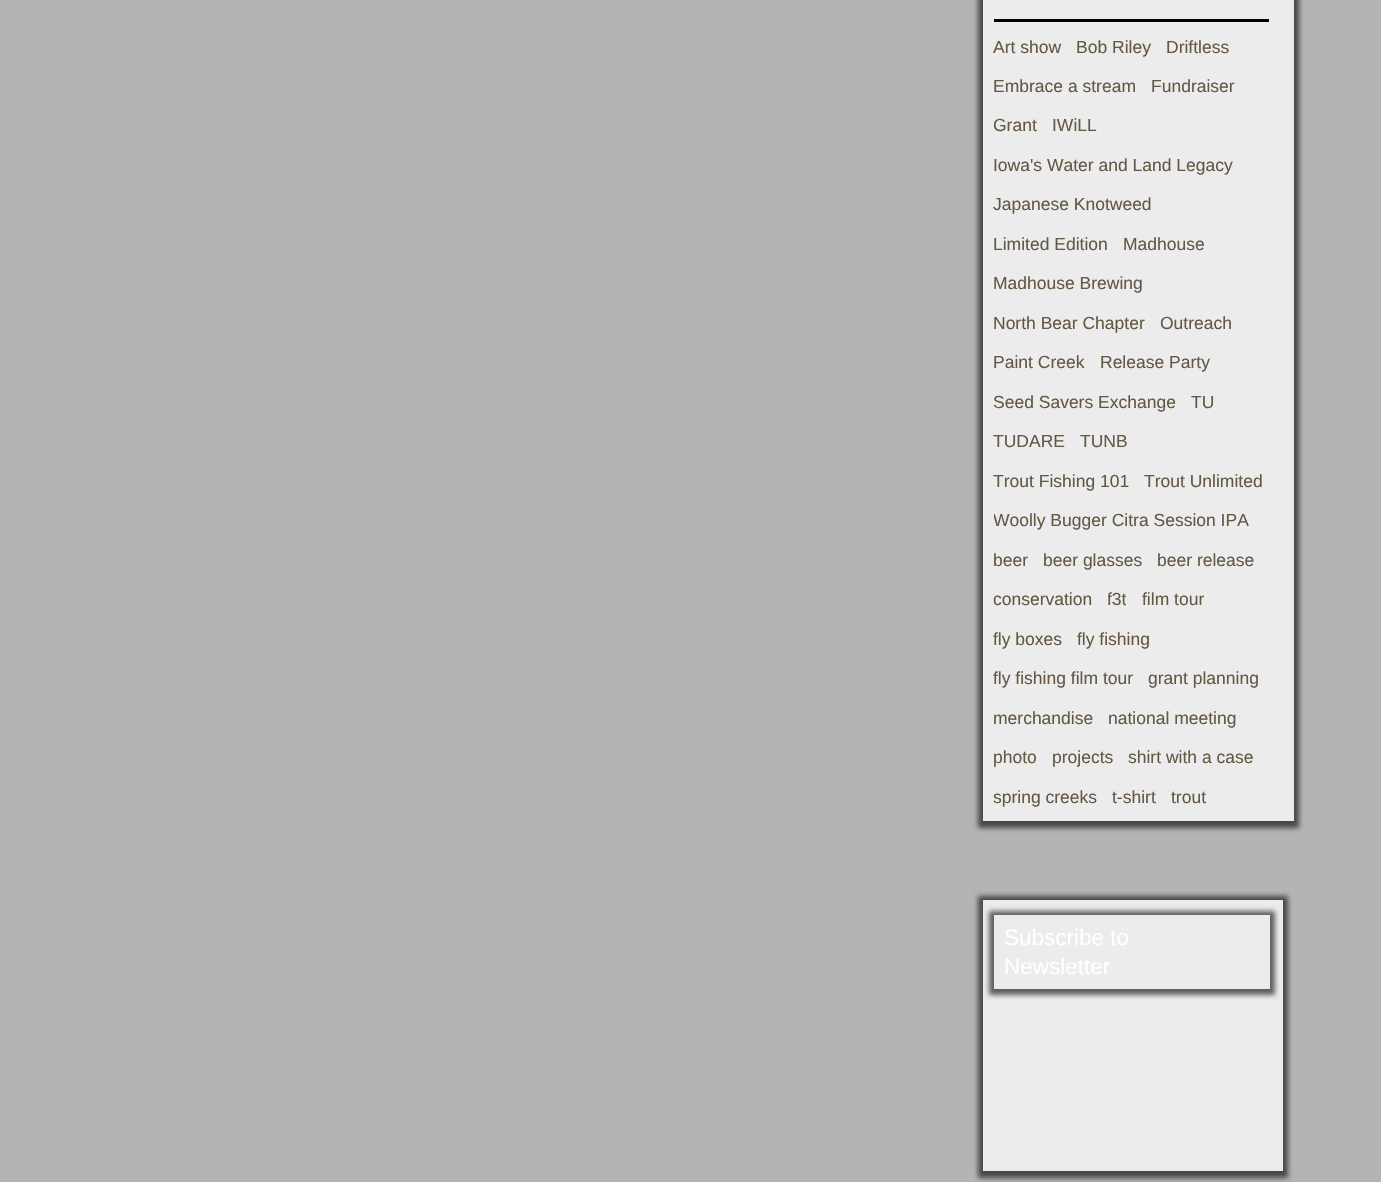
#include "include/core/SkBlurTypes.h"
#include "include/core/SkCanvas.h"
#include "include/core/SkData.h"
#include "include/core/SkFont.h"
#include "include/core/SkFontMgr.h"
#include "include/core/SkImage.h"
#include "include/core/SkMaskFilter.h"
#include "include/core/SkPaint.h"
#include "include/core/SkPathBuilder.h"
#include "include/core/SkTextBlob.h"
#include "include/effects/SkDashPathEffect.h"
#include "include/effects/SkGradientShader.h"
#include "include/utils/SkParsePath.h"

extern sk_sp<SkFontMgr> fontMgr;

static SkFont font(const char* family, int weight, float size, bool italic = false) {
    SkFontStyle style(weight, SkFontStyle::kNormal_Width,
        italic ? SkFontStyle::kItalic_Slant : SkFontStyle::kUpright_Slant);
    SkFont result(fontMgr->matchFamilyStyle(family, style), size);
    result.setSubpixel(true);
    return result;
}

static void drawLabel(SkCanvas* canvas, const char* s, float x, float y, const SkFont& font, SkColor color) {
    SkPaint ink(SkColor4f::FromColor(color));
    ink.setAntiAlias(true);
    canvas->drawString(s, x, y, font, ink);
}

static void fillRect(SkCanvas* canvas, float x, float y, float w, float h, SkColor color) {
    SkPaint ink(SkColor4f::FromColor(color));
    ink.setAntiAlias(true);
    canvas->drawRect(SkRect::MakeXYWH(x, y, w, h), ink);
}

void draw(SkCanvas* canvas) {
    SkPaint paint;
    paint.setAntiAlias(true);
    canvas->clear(0xFFB4B4B4);
    paint.setColor(0x99000000);
    paint.setMaskFilter(SkMaskFilter::MakeBlur(kNormal_SkBlurStyle, 2.5f));
    canvas->drawRect(SkRect::MakeXYWH(978, -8, 321, 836), paint);
    paint.setMaskFilter(nullptr);
    fillRect(canvas, 983, 0, 311, 821, 0xFFECECEC);
    fillRect(canvas, 994, 19, 275, 3, 0xFF000000);
    SkFont font1 = font("Liberation Sans", 400, 17.5f);
    drawLabel(canvas, "Art show", 993, 53, font1, 0xFF645844);
    drawLabel(canvas, "Bob Riley", 1076, 53, font1, 0xFF645844);
    drawLabel(canvas, "Driftless", 1166, 53, font1, 0xFF645844);
    drawLabel(canvas, "Embrace a stream", 993, 92, font1, 0xFF645844);
    drawLabel(canvas, "Fundraiser", 1151, 92, font1, 0xFF645844);
    drawLabel(canvas, "Grant", 993, 131, font1, 0xFF645844);
    drawLabel(canvas, "IWiLL", 1052, 131, font1, 0xFF645844);
    drawLabel(canvas, "Iowa's Water and Land Legacy", 993, 171, font1, 0xFF645844);
    drawLabel(canvas, "Japanese Knotweed", 993, 210, font1, 0xFF645844);
    drawLabel(canvas, "Limited Edition", 993, 250, font1, 0xFF645844);
    drawLabel(canvas, "Madhouse", 1123, 250, font1, 0xFF645844);
    drawLabel(canvas, "Madhouse Brewing", 993, 289, font1, 0xFF645844);
    drawLabel(canvas, "North Bear Chapter", 993, 329, font1, 0xFF645844);
    drawLabel(canvas, "Outreach", 1160, 329, font1, 0xFF645844);
    drawLabel(canvas, "Paint Creek", 993, 368, font1, 0xFF645844);
    drawLabel(canvas, "Release Party", 1100, 368, font1, 0xFF645844);
    drawLabel(canvas, "Seed Savers Exchange", 993, 408, font1, 0xFF645844);
    drawLabel(canvas, "TU", 1191, 408, font1, 0xFF645844);
    drawLabel(canvas, "TUDARE", 993, 447, font1, 0xFF645844);
    drawLabel(canvas, "TUNB", 1080, 447, font1, 0xFF645844);
    drawLabel(canvas, "Trout Fishing 101", 993, 487, font1, 0xFF645844);
    drawLabel(canvas, "Trout Unlimited", 1144, 487, font1, 0xFF645844);
    canvas->save();
    canvas->clipRect(SkRect::MakeXYWH(994, 509, 255, 25));
    drawLabel(canvas, "Woolly Bugger Citra Session IPA", 993, 526, font1, 0xFF645844);
    canvas->restore();
    drawLabel(canvas, "beer", 993, 566, font1, 0xFF645844);
    drawLabel(canvas, "beer glasses", 1043, 566, font1, 0xFF645844);
    drawLabel(canvas, "beer release", 1157, 566, font1, 0xFF645844);
    drawLabel(canvas, "conservation", 993, 605, font1, 0xFF645844);
    canvas->save();
    canvas->clipRect(SkRect::MakeXYWH(1108, 588, 18, 25));
    drawLabel(canvas, "f3t", 1107, 605, font1, 0xFF645844);
    canvas->restore();
    drawLabel(canvas, "film tour", 1142, 605, font1, 0xFF645844);
    drawLabel(canvas, "fly boxes", 993, 645, font1, 0xFF645844);
    drawLabel(canvas, "fly fishing", 1077, 645, font1, 0xFF645844);
    drawLabel(canvas, "fly fishing film tour", 993, 684, font1, 0xFF645844);
    drawLabel(canvas, "grant planning", 1148, 684, font1, 0xFF645844);
    drawLabel(canvas, "merchandise", 993, 724, font1, 0xFF645844);
    drawLabel(canvas, "national meeting", 1108, 724, font1, 0xFF645844);
    drawLabel(canvas, "photo", 993, 763, font1, 0xFF645844);
    drawLabel(canvas, "projects", 1052, 763, font1, 0xFF645844);
    drawLabel(canvas, "shirt with a case", 1128, 763, font1, 0xFF645844);
    drawLabel(canvas, "spring creeks", 993, 803, font1, 0xFF645844);
    drawLabel(canvas, "t-shirt", 1112, 803, font1, 0xFF645844);
    drawLabel(canvas, "trout", 1171, 803, font1, 0xFF645844);
    paint.setMaskFilter(SkMaskFilter::MakeBlur(kNormal_SkBlurStyle, 2.5f));
    canvas->drawRect(SkRect::MakeXYWH(978, 896, 310, 282), paint);
    paint.setMaskFilter(nullptr);
    fillRect(canvas, 983, 900, 300, 271, 0xFFECECEC);
    paint.setMaskFilter(SkMaskFilter::MakeBlur(kNormal_SkBlurStyle, 2.5f));
    canvas->drawRect(SkRect::MakeXYWH(989, 911, 286, 84), paint);
    paint.setMaskFilter(nullptr);
    fillRect(canvas, 994, 915, 276, 74, 0xFFECECEC);
    SkFont font2 = font("Liberation Sans", 400, 22.5f);
    drawLabel(canvas, "Subscribe to", 1004, 945, font2, 0xFFFFFFFF);
    drawLabel(canvas, "Newsletter", 1004, 974, font2, 0xFFFFFFFF);
}
